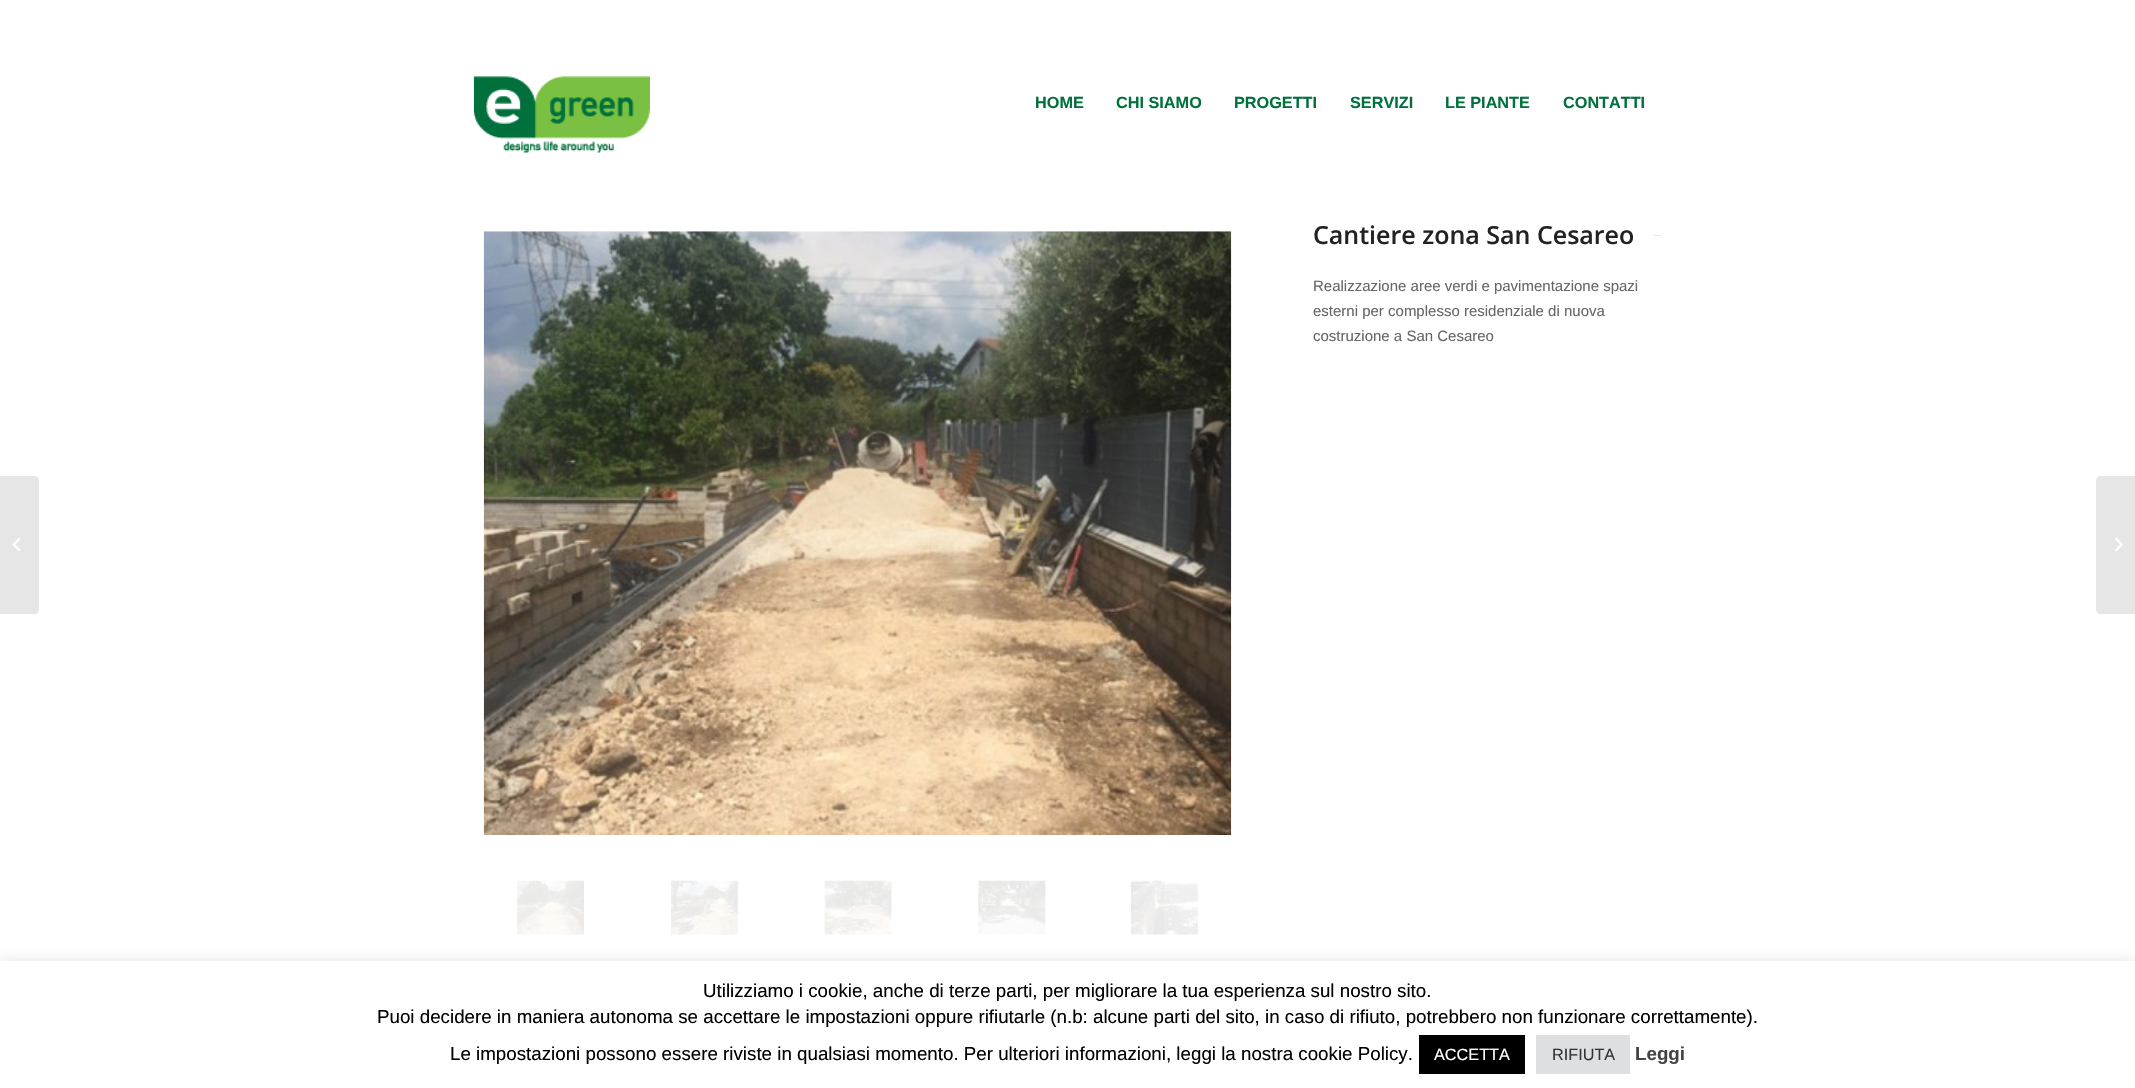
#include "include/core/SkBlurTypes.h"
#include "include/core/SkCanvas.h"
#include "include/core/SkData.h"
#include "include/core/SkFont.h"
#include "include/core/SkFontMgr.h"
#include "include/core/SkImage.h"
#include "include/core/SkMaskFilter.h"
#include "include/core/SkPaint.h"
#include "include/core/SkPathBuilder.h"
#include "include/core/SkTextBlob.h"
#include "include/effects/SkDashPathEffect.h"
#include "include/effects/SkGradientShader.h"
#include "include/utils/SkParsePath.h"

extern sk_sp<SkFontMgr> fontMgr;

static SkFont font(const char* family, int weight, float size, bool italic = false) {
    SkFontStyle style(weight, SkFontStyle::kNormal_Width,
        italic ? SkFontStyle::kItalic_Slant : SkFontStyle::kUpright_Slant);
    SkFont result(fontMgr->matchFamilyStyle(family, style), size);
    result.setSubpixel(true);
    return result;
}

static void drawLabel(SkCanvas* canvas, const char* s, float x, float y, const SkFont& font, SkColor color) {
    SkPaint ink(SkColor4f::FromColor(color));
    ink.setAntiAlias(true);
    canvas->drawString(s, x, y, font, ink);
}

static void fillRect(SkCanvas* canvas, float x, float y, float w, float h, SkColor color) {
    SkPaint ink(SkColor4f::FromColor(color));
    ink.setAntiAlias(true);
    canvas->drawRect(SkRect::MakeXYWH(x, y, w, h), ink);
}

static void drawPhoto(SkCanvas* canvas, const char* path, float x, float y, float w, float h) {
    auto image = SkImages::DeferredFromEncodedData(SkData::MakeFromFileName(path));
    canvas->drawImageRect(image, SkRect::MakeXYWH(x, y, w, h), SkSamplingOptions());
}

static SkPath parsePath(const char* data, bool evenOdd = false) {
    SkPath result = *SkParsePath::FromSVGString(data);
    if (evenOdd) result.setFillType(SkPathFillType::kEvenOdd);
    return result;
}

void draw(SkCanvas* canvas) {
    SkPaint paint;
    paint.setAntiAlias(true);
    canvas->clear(0xFFFFFFFF);
    drawPhoto(canvas, "assets/img1.png", 473, 76, 177, 77);
    SkFont font1 = font("Liberation Sans", 700, 16.25f);
    drawLabel(canvas, "HOME", 1035, 108, font1, 0xFF00713C);
    drawLabel(canvas, "CHI SIAMO", 1116, 108, font1, 0xFF00713C);
    drawLabel(canvas, "PROGETTI", 1234, 108, font1, 0xFF00713C);
    drawLabel(canvas, "SERVIZI", 1350, 108, font1, 0xFF00713C);
    drawLabel(canvas, "LE PIANTE", 1445, 108, font1, 0xFF00713C);
    drawLabel(canvas, "CONTATTI", 1563, 108, font1, 0xFF00713C);
    drawPhoto(canvas, "assets/img2.png", 483, 231, 749, 604);
    drawPhoto(canvas, "assets/img3.png", 517, 880, 67, 55);
    drawPhoto(canvas, "assets/img4.png", 671, 880, 67, 55);
    drawPhoto(canvas, "assets/img5.png", 824, 880, 68, 55);
    drawPhoto(canvas, "assets/img6.png", 978, 880, 68, 54);
    drawPhoto(canvas, "assets/img7.png", 1131, 880, 67, 55);
    SkFont font2 = font("Open Sans", 600, 25);
    drawLabel(canvas, "Cantiere zona San Cesareo", 1313, 244, font2, 0xFF222222);
    fillRect(canvas, 1653, 235, 8, 1, 0xFFE8E8E8);
    SkFont font3 = font("Liberation Sans", 400, 15);
    drawLabel(canvas, "Realizzazione aree verdi e pavimentazione spazi", 1313, 291, font3, 0xFF666666);
    drawLabel(canvas, "esterni per complesso residenziale di nuova", 1313, 316, font3, 0xFF666666);
    drawLabel(canvas, "costruzione a San Cesareo", 1313, 341, font3, 0xFF666666);
    paint.setColor(0xFFE6E6E6);
    canvas->drawPath(parsePath("M0 476H34C37 476 39 478 39 481V609C39 612 37 614 34 614H0Z"), paint);
    drawPhoto(canvas, "assets/img8.png", 12, 537, 9, 15);
    canvas->drawPath(parsePath("M2101 476H2135V614H2101C2098 614 2096 612 2096 609V481C2096 478 2098 476 2101 476Z"), paint);
    drawPhoto(canvas, "assets/img9.png", 2115, 537, 8, 15);
    paint.setColor(0x4DACABAB);
    paint.setMaskFilter(SkMaskFilter::MakeBlur(kNormal_SkBlurStyle, 6));
    canvas->drawRect(SkRect::MakeXYWH(0, 960, 2135, 128), paint);
    paint.setMaskFilter(nullptr);
    fillRect(canvas, 0, 961, 2135, 127, 0xFFFFFFFF);
    SkFont font4 = font("Liberation Sans", 400, 18.75f);
    drawLabel(canvas, "Utilizziamo i cookie, anche di terze parti, per migliorare la tua esperienza sul nostro sito.", 703, 997, font4, 0xFF000000);
    drawLabel(canvas, "Puoi decidere in maniera autonoma se accettare le impostazioni oppure rifiutarle (n.b: alcune parti del sito, in caso di rifiuto, potrebbero non funzionare correttamente).", 377, 1023, font4, 0xFF000000);
    drawLabel(canvas, "Le impostazioni possono essere riviste in qualsiasi momento. Per ulteriori informazioni, leggi la nostra cookie Policy.", 450, 1060, font4, 0xFF000000);
    fillRect(canvas, 1419, 1035, 106, 39, 0xFF000000);
    SkFont font5 = font("Liberation Sans", 400, 16.25f);
    drawLabel(canvas, "ACCETTA", 1434, 1060, font5, 0xFFFFFFFF);
    fillRect(canvas, 1536, 1035, 94, 39, 0xFFDEDFE0);
    drawLabel(canvas, "RIFIUTA", 1552, 1060, font5, 0xFF333333);
    SkFont font6 = font("Liberation Sans", 700, 18.75f);
    drawLabel(canvas, "Leggi", 1635, 1060, font6, 0xFF444444);
}
